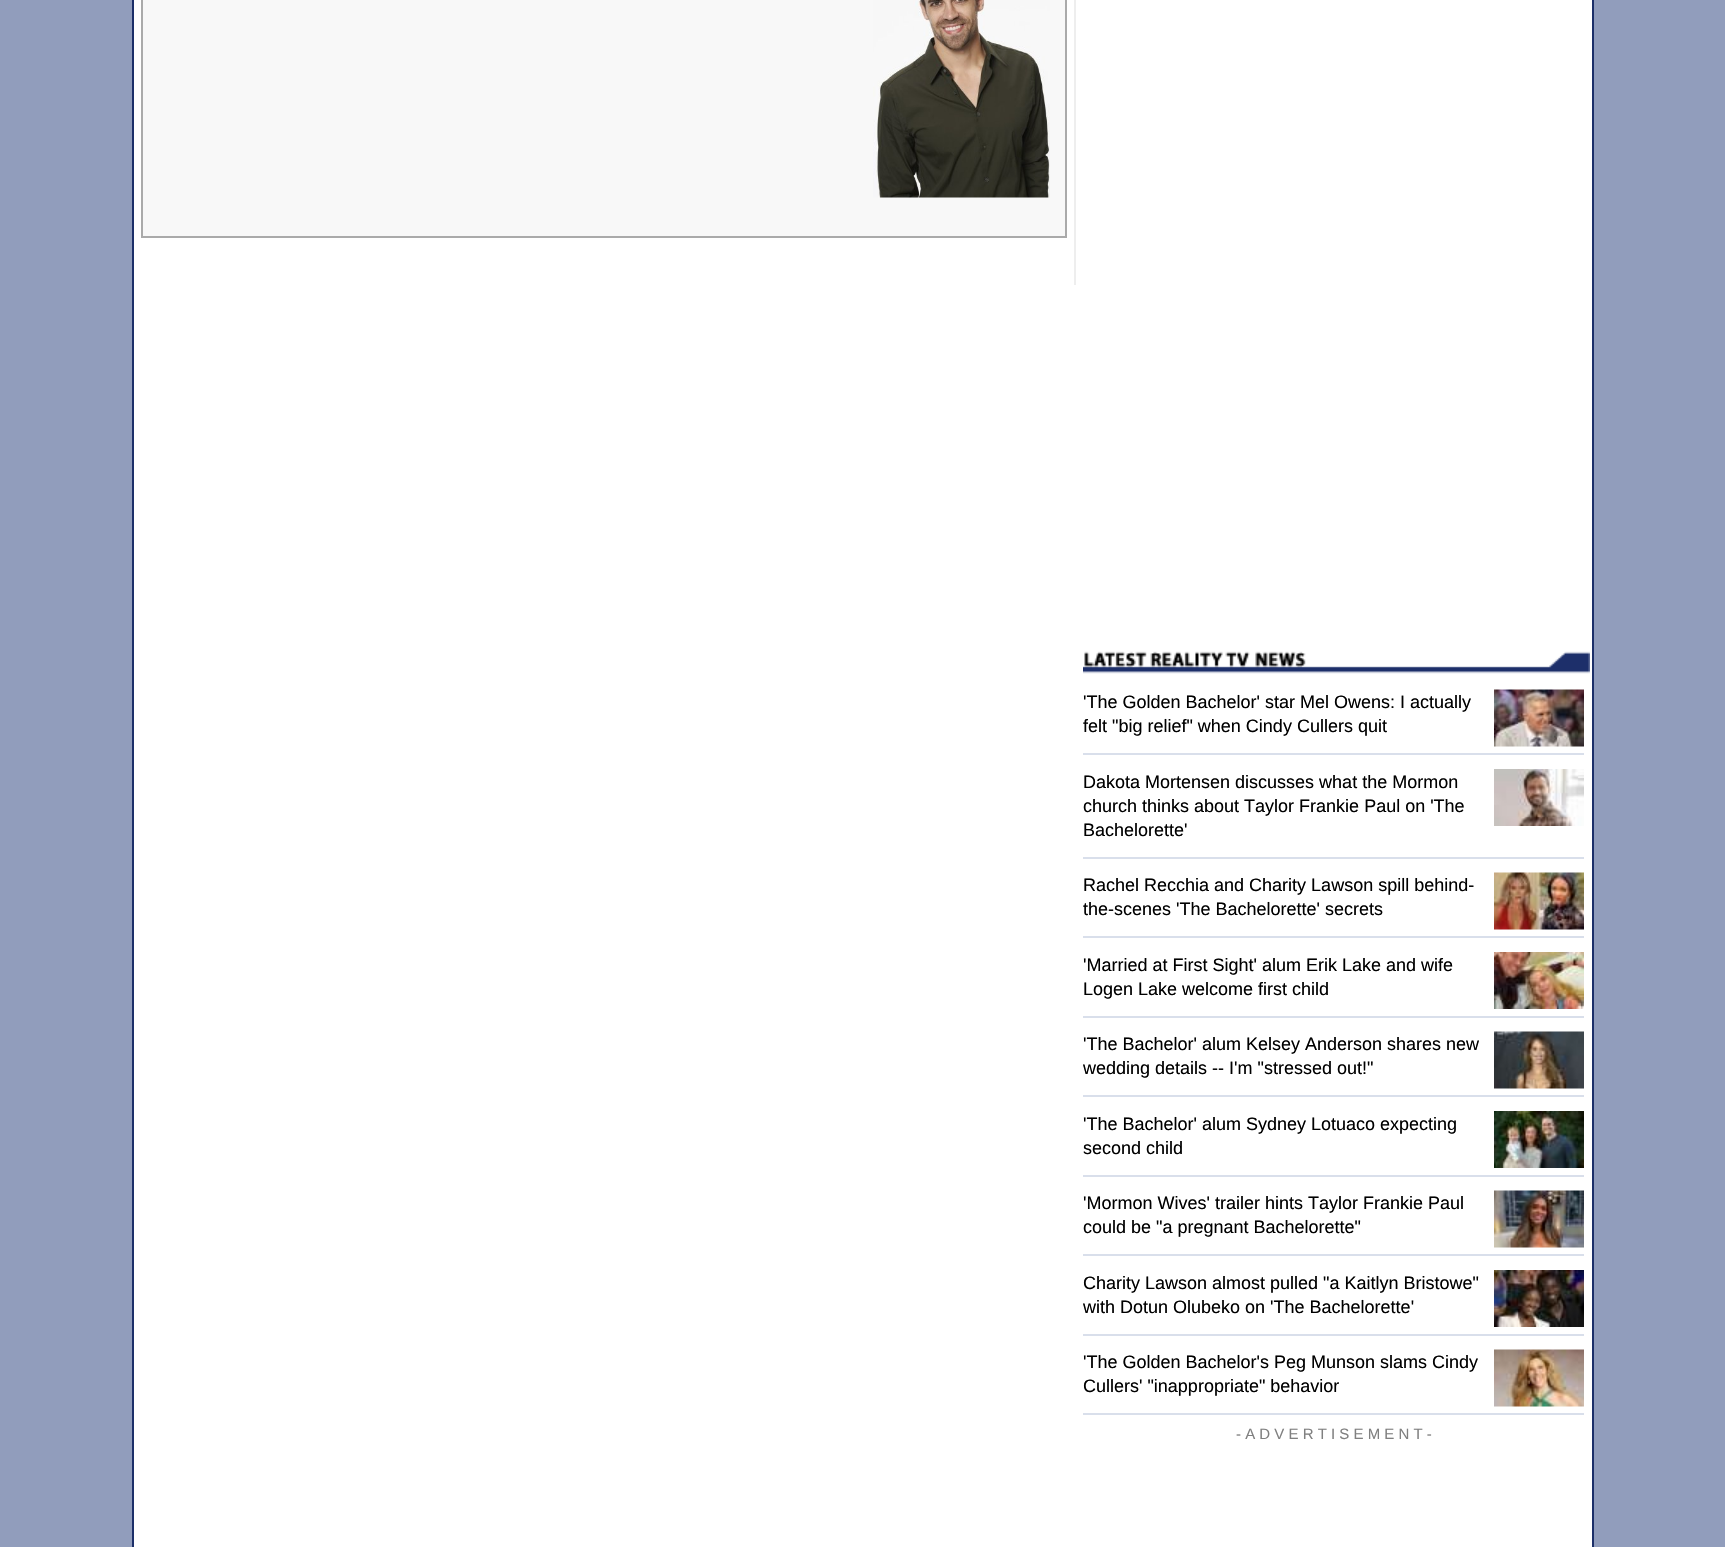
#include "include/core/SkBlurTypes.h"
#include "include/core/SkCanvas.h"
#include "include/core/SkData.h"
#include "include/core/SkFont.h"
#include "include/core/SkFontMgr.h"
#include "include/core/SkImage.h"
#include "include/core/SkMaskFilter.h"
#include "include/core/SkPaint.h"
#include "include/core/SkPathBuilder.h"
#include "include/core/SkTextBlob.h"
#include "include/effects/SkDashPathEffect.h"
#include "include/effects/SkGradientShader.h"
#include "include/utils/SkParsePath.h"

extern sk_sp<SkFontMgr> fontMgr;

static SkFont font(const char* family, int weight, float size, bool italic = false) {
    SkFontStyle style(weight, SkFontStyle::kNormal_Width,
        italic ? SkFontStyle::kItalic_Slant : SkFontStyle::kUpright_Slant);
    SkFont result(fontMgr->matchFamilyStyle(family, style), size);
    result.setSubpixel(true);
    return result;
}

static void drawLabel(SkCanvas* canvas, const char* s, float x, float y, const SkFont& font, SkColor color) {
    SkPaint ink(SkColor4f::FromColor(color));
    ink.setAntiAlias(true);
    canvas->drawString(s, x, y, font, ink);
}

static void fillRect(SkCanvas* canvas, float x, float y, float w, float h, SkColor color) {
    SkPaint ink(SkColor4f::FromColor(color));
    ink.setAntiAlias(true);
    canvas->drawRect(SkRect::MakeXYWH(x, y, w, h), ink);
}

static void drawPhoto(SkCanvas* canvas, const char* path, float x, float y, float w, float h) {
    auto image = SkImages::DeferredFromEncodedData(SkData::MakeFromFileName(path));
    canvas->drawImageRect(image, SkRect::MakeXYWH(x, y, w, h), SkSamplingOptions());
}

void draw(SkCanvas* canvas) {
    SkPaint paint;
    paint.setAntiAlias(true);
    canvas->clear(0xFF919DBC);
    fillRect(canvas, 134, 0, 1458, 1547, 0xFFFFFFFF);
    fillRect(canvas, 1592, 0, 2, 1547, 0xFF1C2F69);
    fillRect(canvas, 132, 0, 2, 1547, 0xFF1C2F69);
    fillRect(canvas, 1074, 0, 2, 285, 0xFFEEEEEE);
    fillRect(canvas, 143, 0, 922, 236, 0xFFF8F8F8);
    fillRect(canvas, 1065, 0, 2, 237, 0xFFAAAAAA);
    fillRect(canvas, 141, 236, 926, 2, 0xFFAAAAAA);
    fillRect(canvas, 141, 0, 2, 237, 0xFFAAAAAA);
    drawPhoto(canvas, "assets/img1.png", 873, 0, 177, 198);
    drawPhoto(canvas, "assets/img2.png", 1083, 651, 507, 23);
    fillRect(canvas, 1083, 753, 501, 2, 0xFFD9DFEB);
    SkFont font1 = font("Liberation Sans", 400, 18);
    drawLabel(canvas, "'The Golden Bachelor' star Mel Owens: I actually", 1083, 708, font1, 0xFF000000);
    drawPhoto(canvas, "assets/img3.png", 1494, 689, 90, 58);
    drawLabel(canvas, "felt \"big relief\" when Cindy Cullers quit", 1083, 732, font1, 0xFF000000);
    fillRect(canvas, 1083, 857, 501, 2, 0xFFD9DFEB);
    drawLabel(canvas, "Dakota Mortensen discusses what the Mormon", 1083, 788, font1, 0xFF000000);
    drawPhoto(canvas, "assets/img4.png", 1494, 769, 90, 57);
    drawLabel(canvas, "church thinks about Taylor Frankie Paul on 'The", 1083, 812, font1, 0xFF000000);
    drawLabel(canvas, "Bachelorette'", 1083, 836, font1, 0xFF000000);
    fillRect(canvas, 1083, 936, 501, 2, 0xFFD9DFEB);
    drawLabel(canvas, "Rachel Recchia and Charity Lawson spill behind-", 1083, 891, font1, 0xFF000000);
    drawPhoto(canvas, "assets/img5.png", 1494, 872, 90, 58);
    drawLabel(canvas, "the-scenes 'The Bachelorette' secrets", 1083, 915, font1, 0xFF000000);
    fillRect(canvas, 1083, 1016, 501, 2, 0xFFD9DFEB);
    drawLabel(canvas, "'Married at First Sight' alum Erik Lake and wife", 1083, 971, font1, 0xFF000000);
    drawPhoto(canvas, "assets/img6.png", 1494, 952, 90, 57);
    drawLabel(canvas, "Logen Lake welcome first child", 1083, 995, font1, 0xFF000000);
    fillRect(canvas, 1083, 1095, 501, 2, 0xFFD9DFEB);
    drawLabel(canvas, "'The Bachelor' alum Kelsey Anderson shares new", 1083, 1050, font1, 0xFF000000);
    drawPhoto(canvas, "assets/img7.png", 1494, 1031, 90, 58);
    drawLabel(canvas, "wedding details -- I'm \"stressed out!\"", 1083, 1074, font1, 0xFF000000);
    fillRect(canvas, 1083, 1175, 501, 2, 0xFFD9DFEB);
    drawLabel(canvas, "'The Bachelor' alum Sydney Lotuaco expecting", 1083, 1130, font1, 0xFF000000);
    drawPhoto(canvas, "assets/img8.png", 1494, 1111, 90, 57);
    drawLabel(canvas, "second child", 1083, 1154, font1, 0xFF000000);
    fillRect(canvas, 1083, 1254, 501, 2, 0xFFD9DFEB);
    drawLabel(canvas, "'Mormon Wives' trailer hints Taylor Frankie Paul", 1083, 1209, font1, 0xFF000000);
    drawPhoto(canvas, "assets/img9.png", 1494, 1190, 90, 58);
    drawLabel(canvas, "could be \"a pregnant Bachelorette\"", 1083, 1233, font1, 0xFF000000);
    fillRect(canvas, 1083, 1334, 501, 2, 0xFFD9DFEB);
    drawLabel(canvas, "Charity Lawson almost pulled \"a Kaitlyn Bristowe\"", 1083, 1289, font1, 0xFF000000);
    drawPhoto(canvas, "assets/img10.png", 1494, 1270, 90, 57);
    drawLabel(canvas, "with Dotun Olubeko on 'The Bachelorette'", 1083, 1313, font1, 0xFF000000);
    fillRect(canvas, 1083, 1413, 501, 2, 0xFFD9DFEB);
    drawLabel(canvas, "'The Golden Bachelor's Peg Munson slams Cindy", 1083, 1368, font1, 0xFF000000);
    drawPhoto(canvas, "assets/img11.png", 1494, 1349, 90, 58);
    drawLabel(canvas, "Cullers' \"inappropriate\" behavior", 1083, 1392, font1, 0xFF000000);
    SkFont font2 = font("Liberation Sans", 400, 15);
    drawLabel(canvas, "- A D V E R T I S E M E N T -", 1236, 1439, font2, 0xFF808080);
}
